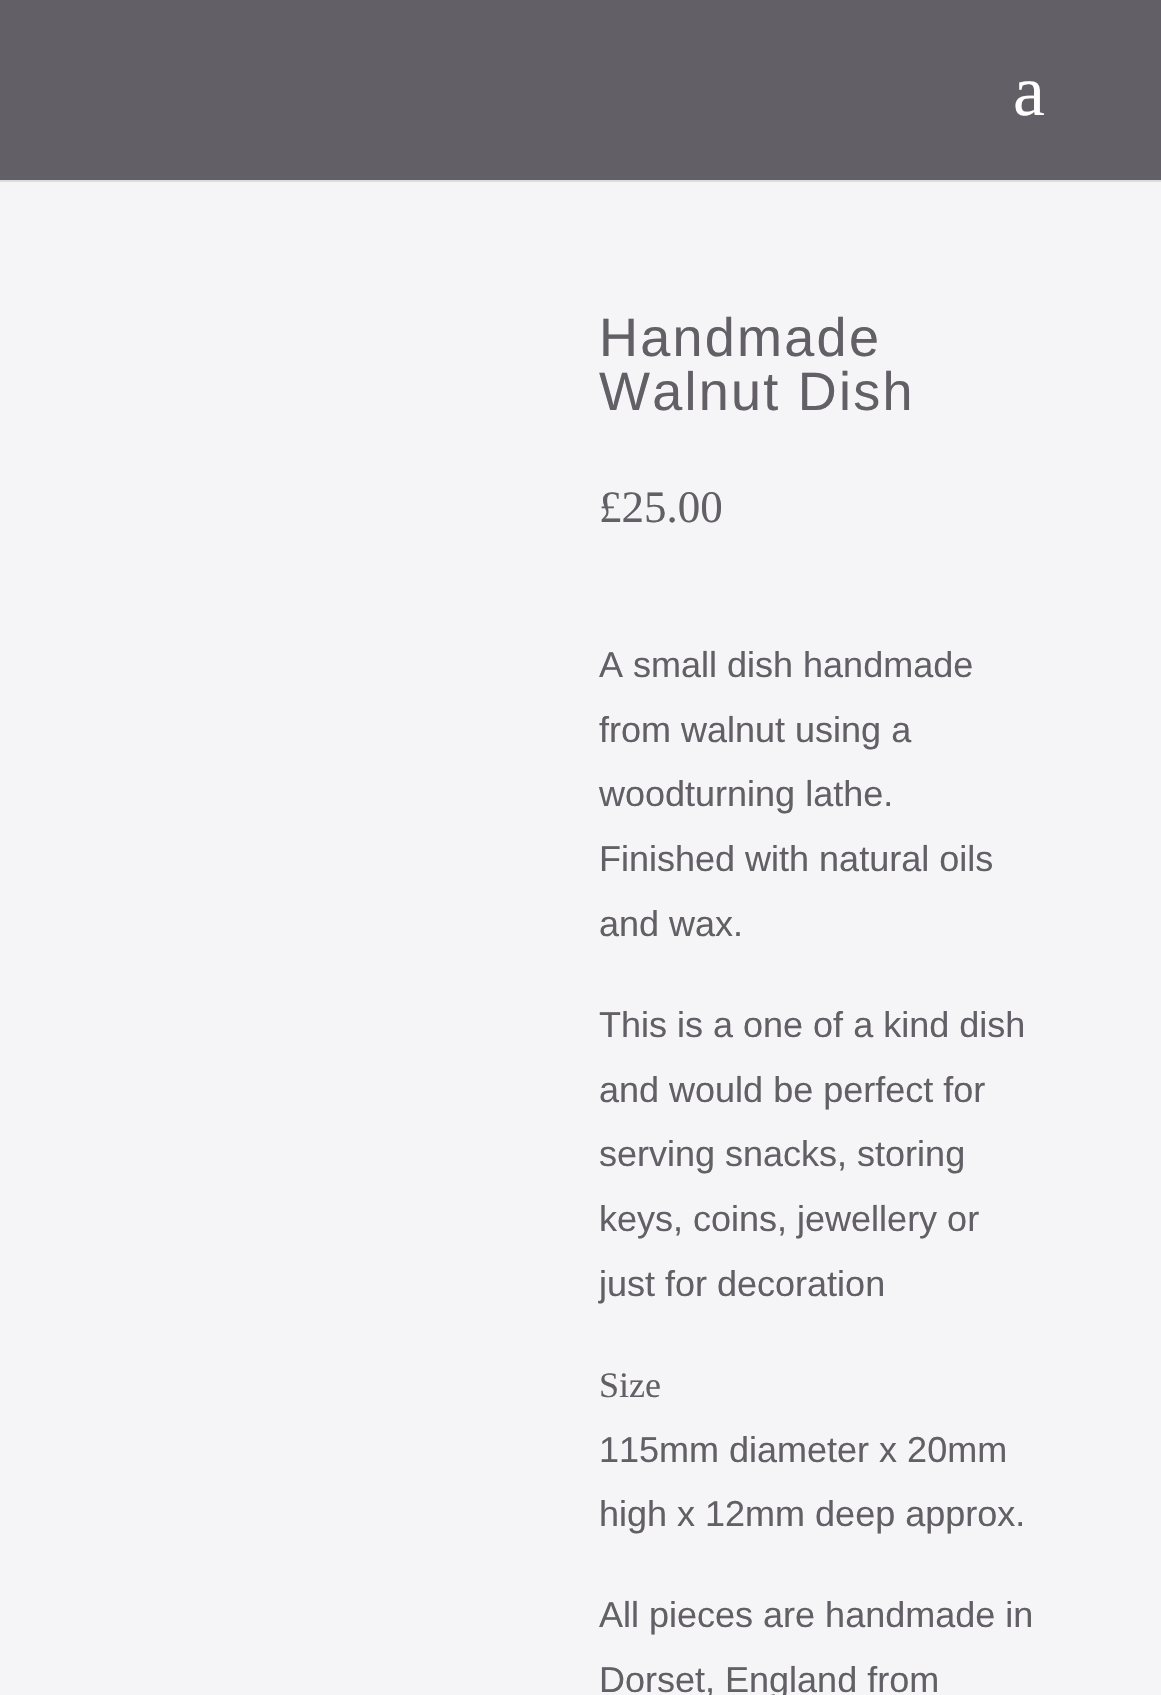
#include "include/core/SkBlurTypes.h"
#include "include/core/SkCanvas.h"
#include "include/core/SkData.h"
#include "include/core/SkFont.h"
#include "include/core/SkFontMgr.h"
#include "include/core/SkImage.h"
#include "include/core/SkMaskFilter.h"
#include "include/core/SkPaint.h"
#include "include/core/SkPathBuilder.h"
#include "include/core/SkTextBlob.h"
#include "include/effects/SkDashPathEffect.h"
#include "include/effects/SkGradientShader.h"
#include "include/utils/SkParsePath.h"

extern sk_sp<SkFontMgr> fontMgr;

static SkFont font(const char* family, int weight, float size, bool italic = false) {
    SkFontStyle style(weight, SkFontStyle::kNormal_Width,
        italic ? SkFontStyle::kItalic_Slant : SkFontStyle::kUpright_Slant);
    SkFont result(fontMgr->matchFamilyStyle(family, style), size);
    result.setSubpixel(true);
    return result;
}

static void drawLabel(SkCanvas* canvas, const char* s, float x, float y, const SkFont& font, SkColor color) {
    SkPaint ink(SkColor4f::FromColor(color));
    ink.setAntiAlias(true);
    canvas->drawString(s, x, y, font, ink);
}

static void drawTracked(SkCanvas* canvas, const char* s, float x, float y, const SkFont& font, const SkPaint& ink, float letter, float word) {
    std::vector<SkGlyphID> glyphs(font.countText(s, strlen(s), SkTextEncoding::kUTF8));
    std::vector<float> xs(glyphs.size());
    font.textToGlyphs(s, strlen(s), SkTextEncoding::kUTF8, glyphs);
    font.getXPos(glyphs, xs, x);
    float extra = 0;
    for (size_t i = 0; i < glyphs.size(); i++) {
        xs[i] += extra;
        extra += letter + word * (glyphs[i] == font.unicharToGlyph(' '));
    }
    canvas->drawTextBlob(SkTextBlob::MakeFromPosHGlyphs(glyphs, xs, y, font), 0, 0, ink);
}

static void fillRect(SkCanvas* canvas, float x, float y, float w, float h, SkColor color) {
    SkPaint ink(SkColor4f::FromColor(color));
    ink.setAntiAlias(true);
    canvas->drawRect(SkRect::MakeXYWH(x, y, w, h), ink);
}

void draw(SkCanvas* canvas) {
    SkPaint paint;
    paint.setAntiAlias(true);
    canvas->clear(0xFFF5F4F6);
    fillRect(canvas, 0, 180, 1161, 2, 0xFFDDDCDD);
    fillRect(canvas, 0, 0, 1161, 180, 0xFF625F66);
    SkFont font1 = font("Liberation Serif", 400, 72);
    drawLabel(canvas, "a", 1013, 115, font1, 0xFFFFFFFF);
    SkFont font2 = font("Liberation Sans", 400, 54);
    paint.setColor(0xFF625F66);
    drawTracked(canvas, "Handmade", 599, 356, font2, paint, 2.25f, 0);
    drawTracked(canvas, "Walnut Dish", 599, 410, font2, paint, 2.25f, 0);
    SkFont font3 = font("Liberation Serif", 400, 45);
    drawLabel(canvas, "£25.00", 599, 522, font3, 0xFF625F66);
    SkFont font4 = font("Liberation Sans", 400, 36);
    drawLabel(canvas, "A small dish handmade", 599, 677, font4, 0xFF625F66);
    drawLabel(canvas, "from walnut using a", 599, 742, font4, 0xFF625F66);
    drawLabel(canvas, "woodturning lathe.", 599, 806, font4, 0xFF625F66);
    drawLabel(canvas, "Finished with natural oils", 599, 871, font4, 0xFF625F66);
    drawLabel(canvas, "and wax.", 599, 936, font4, 0xFF625F66);
    drawLabel(canvas, "This is a one of a kind dish", 599, 1037, font4, 0xFF625F66);
    drawLabel(canvas, "and would be perfect for", 599, 1102, font4, 0xFF625F66);
    drawLabel(canvas, "serving snacks, storing", 599, 1166, font4, 0xFF625F66);
    drawLabel(canvas, "keys, coins, jewellery or", 599, 1231, font4, 0xFF625F66);
    drawLabel(canvas, "just for decoration", 599, 1296, font4, 0xFF625F66);
    SkFont font5 = font("Liberation Serif", 400, 36);
    drawLabel(canvas, "Size", 599, 1397, font5, 0xFF625F66);
    drawLabel(canvas, "115mm diameter x 20mm", 599, 1462, font4, 0xFF625F66);
    drawLabel(canvas, "high x 12mm deep approx.", 599, 1526, font4, 0xFF625F66);
    drawLabel(canvas, "All pieces are handmade in", 599, 1627, font4, 0xFF625F66);
    drawLabel(canvas, "Dorset, England from", 599, 1692, font4, 0xFF625F66);
}
